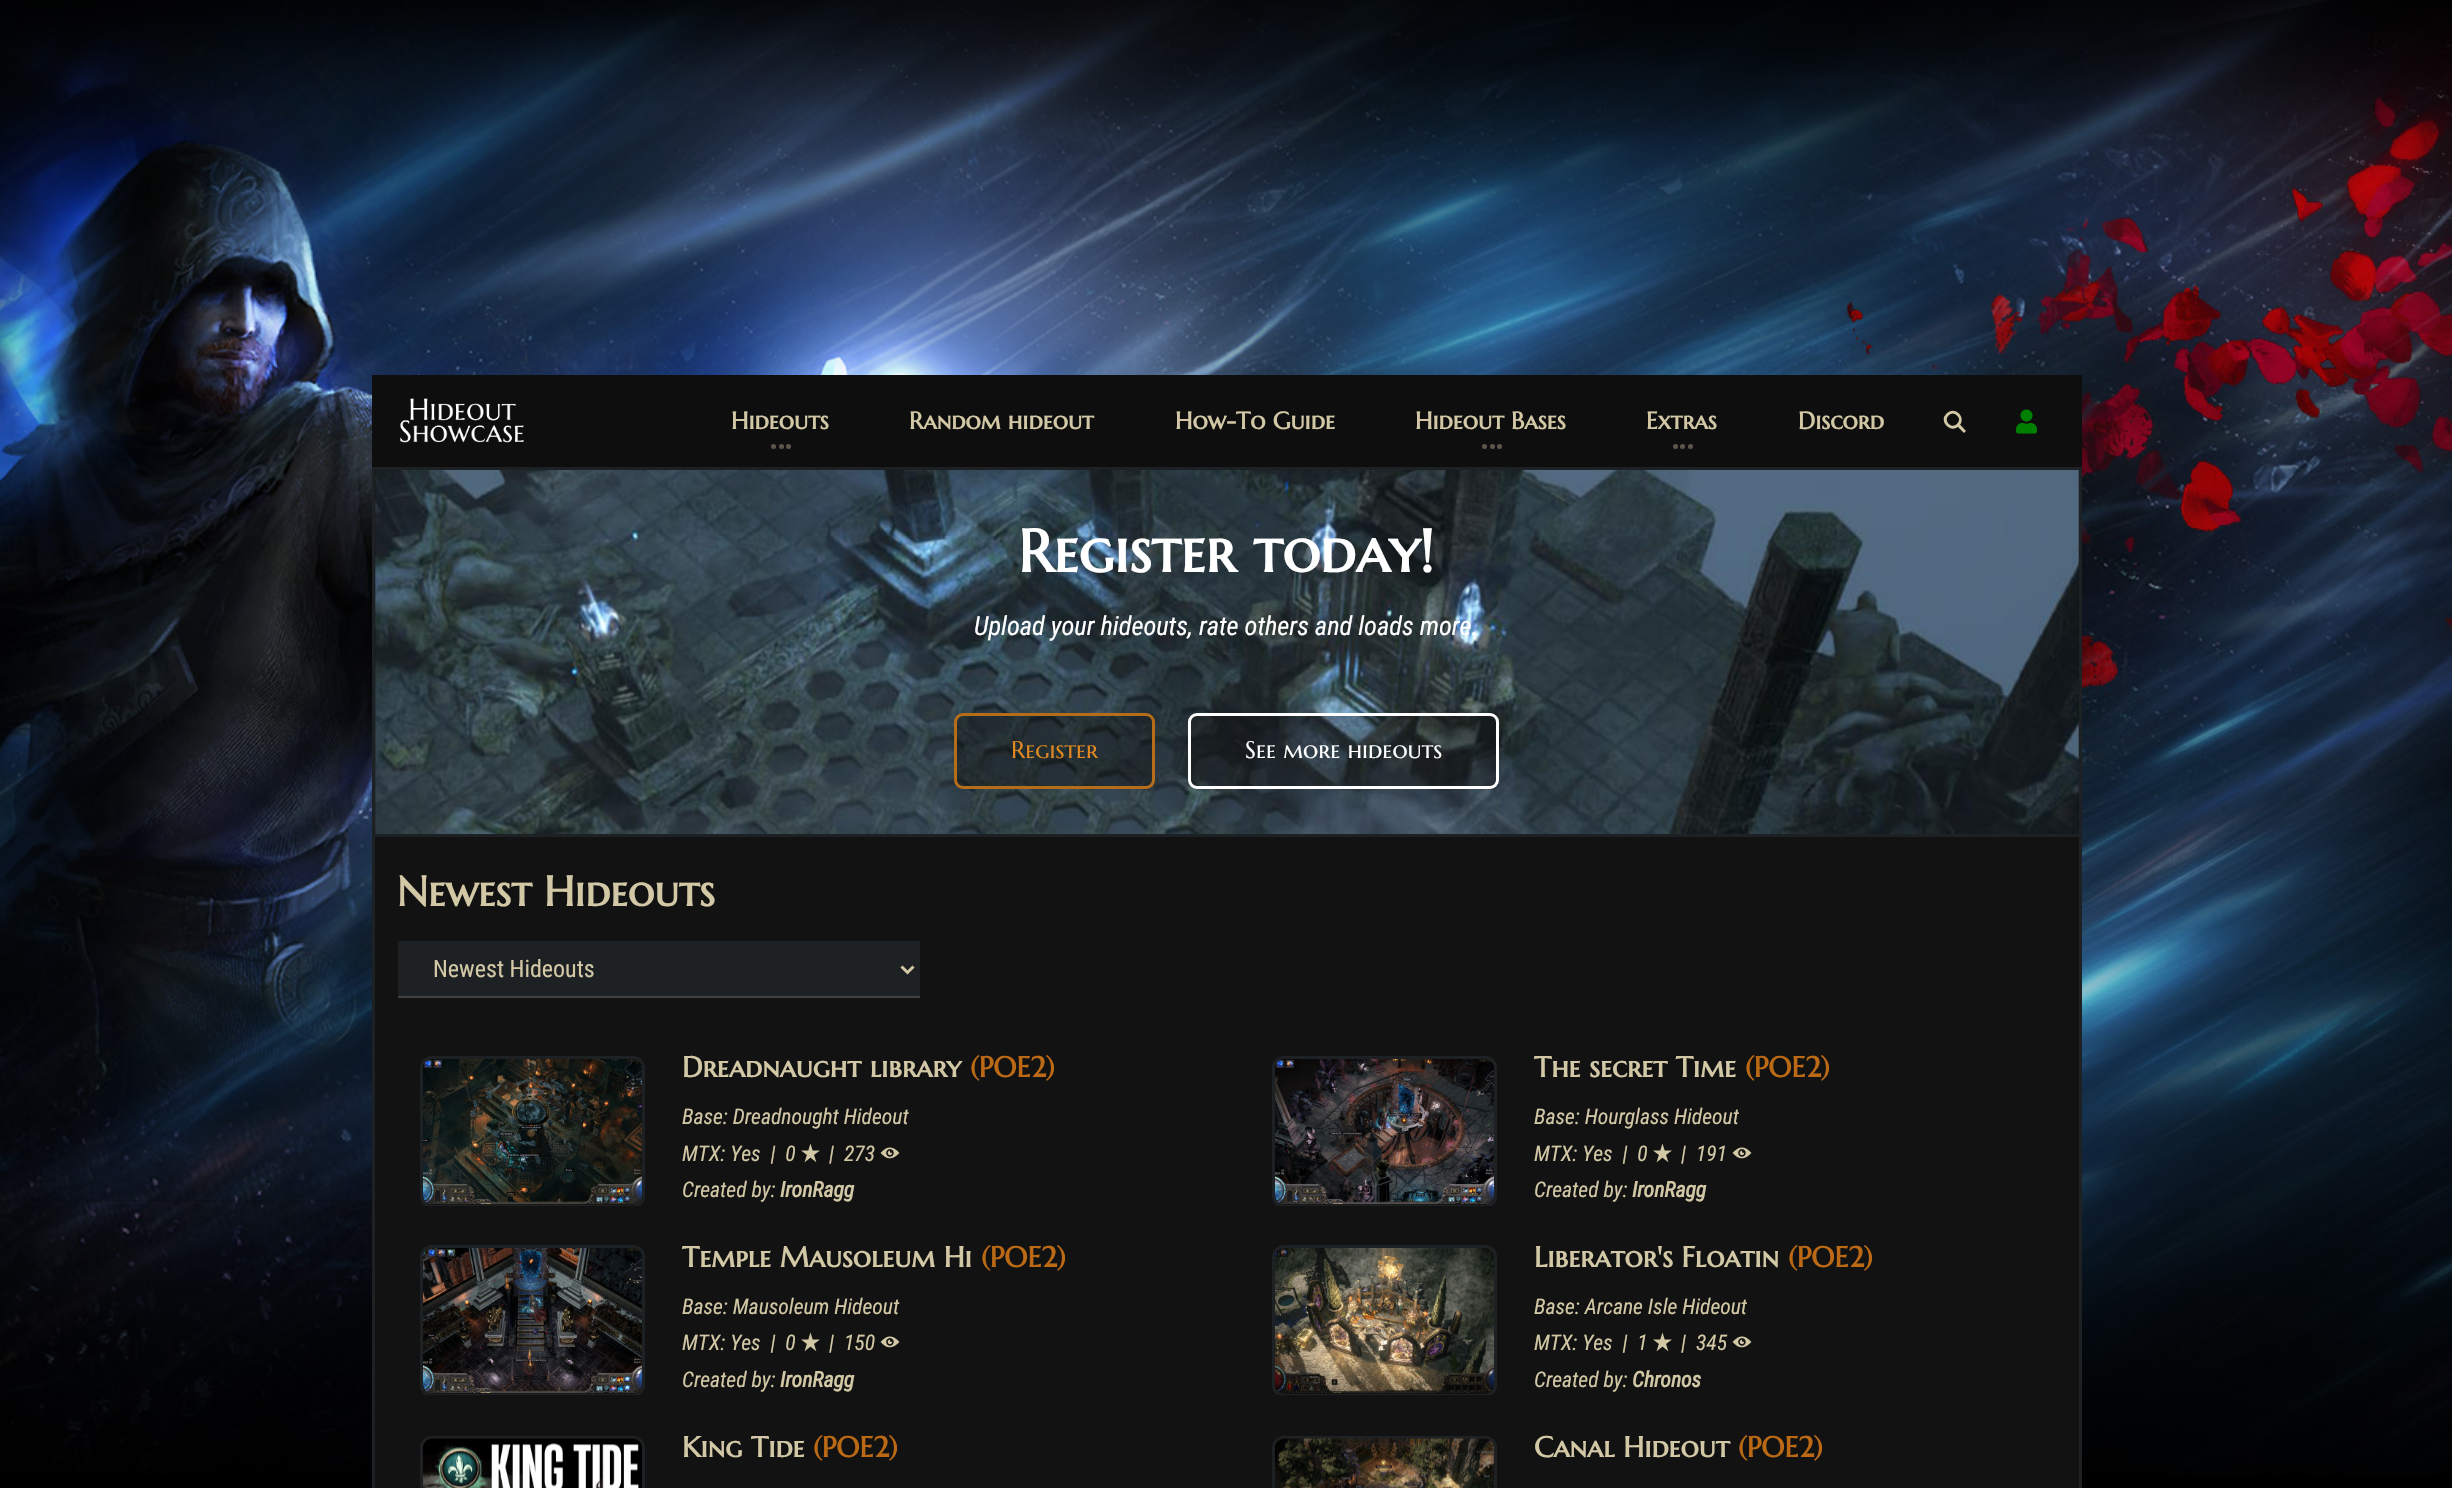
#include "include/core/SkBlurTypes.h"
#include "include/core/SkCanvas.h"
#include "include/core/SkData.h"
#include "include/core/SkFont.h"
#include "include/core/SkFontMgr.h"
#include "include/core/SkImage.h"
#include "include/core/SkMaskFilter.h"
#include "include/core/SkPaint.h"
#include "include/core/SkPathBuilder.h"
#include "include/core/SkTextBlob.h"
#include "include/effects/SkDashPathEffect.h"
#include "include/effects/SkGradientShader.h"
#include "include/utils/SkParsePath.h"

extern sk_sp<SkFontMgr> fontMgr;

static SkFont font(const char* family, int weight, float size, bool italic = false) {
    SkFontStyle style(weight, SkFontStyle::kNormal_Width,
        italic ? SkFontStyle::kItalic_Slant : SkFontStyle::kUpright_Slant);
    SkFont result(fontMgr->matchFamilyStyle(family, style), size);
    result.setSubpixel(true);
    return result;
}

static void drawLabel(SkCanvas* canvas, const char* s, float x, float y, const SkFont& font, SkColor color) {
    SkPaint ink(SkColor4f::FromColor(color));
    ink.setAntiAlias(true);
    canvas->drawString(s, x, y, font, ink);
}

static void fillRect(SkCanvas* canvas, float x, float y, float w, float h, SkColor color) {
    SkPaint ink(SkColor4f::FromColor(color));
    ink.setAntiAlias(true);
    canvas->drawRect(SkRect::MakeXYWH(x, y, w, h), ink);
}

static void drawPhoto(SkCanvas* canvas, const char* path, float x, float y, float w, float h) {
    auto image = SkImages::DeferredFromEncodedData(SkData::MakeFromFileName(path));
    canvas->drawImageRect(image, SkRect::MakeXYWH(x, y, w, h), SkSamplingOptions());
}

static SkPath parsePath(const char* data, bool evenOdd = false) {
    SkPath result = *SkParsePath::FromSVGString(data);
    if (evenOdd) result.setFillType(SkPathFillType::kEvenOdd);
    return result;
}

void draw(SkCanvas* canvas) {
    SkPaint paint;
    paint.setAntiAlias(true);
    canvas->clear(0xFF000000);
    drawPhoto(canvas, "assets/img1.png", 0, 0, 2452, 1475);
    fillRect(canvas, 372, 375, 1710, 92, 0xFF0E0E0E);
    drawPhoto(canvas, "assets/img2.png", 399, 398, 125, 45);
    SkFont font1 = font("Marcellus SC", 700, 24);
    drawLabel(canvas, "Hideouts", 731, 429, font1, 0xFFD2C8A6);
    paint.setColor(0xFF5C584B);
    canvas->drawCircle(773.5f, 446.5f, 2.5f, paint);
    canvas->drawCircle(788.5f, 446.5f, 2.5f, paint);
    canvas->drawCircle(781.5f, 446.5f, 2.5f, paint);
    drawLabel(canvas, "Random hideout", 909, 429, font1, 0xFFD2C8A6);
    drawLabel(canvas, "How-To Guide", 1175, 429, font1, 0xFFD2C8A6);
    drawLabel(canvas, "Hideout Bases", 1415, 429, font1, 0xFFD2C8A6);
    canvas->drawCircle(1484.5f, 446.5f, 2.5f, paint);
    canvas->drawCircle(1499.5f, 446.5f, 2.5f, paint);
    canvas->drawCircle(1492.5f, 446.5f, 2.5f, paint);
    drawLabel(canvas, "Extras", 1646, 429, font1, 0xFFD2C8A6);
    canvas->drawCircle(1675.5f, 446.5f, 2.5f, paint);
    canvas->drawCircle(1690.5f, 446.5f, 2.5f, paint);
    canvas->drawCircle(1682.5f, 446.5f, 2.5f, paint);
    drawLabel(canvas, "Discord", 1798, 429, font1, 0xFFD2C8A6);
    paint.setStroke(true);
    paint.setStrokeWidth(3);
    paint.setColor(0xFFD2C8A6);
    canvas->drawPath(parsePath("M1947.5 414.5C1954.5 407.5 1965 418 1958 425C1951 432 1940.5 421 1947.5 414.5Z"), paint);
    paint.setStroke(false);
    canvas->drawPath(parsePath("M1957.5 426.5L1960 424.5L1966 431L1964 433Z"), paint);
    drawPhoto(canvas, "assets/img3.png", 2016, 409, 21, 25);
    paint.setColor(0xFF121212);
    canvas->drawRect(SkRect::MakeXYWH(373.5f, 468.5f, 1707, 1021), paint);
    paint.setStroke(true);
    paint.setColor(0xFF1E2124);
    canvas->drawRect(SkRect::MakeXYWH(373.5f, 468.5f, 1707, 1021), paint);
    fillRect(canvas, 375, 834, 1704, 3, 0xFF1E2124);
    drawPhoto(canvas, "assets/img4.png", 375, 470, 1704, 364);
    SkFont font2 = font("Marcellus SC", 700, 60);
    drawLabel(canvas, "Register today!", 1018, 572, font2, 0xFFFFFFFF);
    SkFont font3 = font("Roboto Condensed", 400, 26.4f, true);
    drawLabel(canvas, "Upload your hideouts, rate others and loads more.", 974, 635, font3, 0xFFFFFFFF);
    paint.setStroke(false);
    paint.setColor(0x660E0E0E);
    canvas->drawRoundRect(SkRect::MakeXYWH(955.5f, 714.5f, 198, 73), 7.5f, 7.5f, paint);
    paint.setStroke(true);
    paint.setColor(0xFFB56D19);
    canvas->drawRoundRect(SkRect::MakeXYWH(955.5f, 714.5f, 198, 73), 7.5f, 7.5f, paint);
    SkFont font4 = font("Marcellus SC", 400, 24);
    drawLabel(canvas, "Register", 1011, 758, font4, 0xFFE08821);
    paint.setStroke(false);
    paint.setColor(0x660E0E0E);
    canvas->drawRoundRect(SkRect::MakeXYWH(1189.5f, 714.5f, 308, 73), 7.5f, 7.5f, paint);
    paint.setStroke(true);
    paint.setColor(0xFFFFFFFF);
    canvas->drawRoundRect(SkRect::MakeXYWH(1189.5f, 714.5f, 308, 73), 7.5f, 7.5f, paint);
    drawLabel(canvas, "See more hideouts", 1245, 758, font4, 0xFFFFFFFF);
    SkFont font5 = font("Marcellus SC", 700, 42);
    drawLabel(canvas, "Newest Hideouts", 397, 906, font5, 0xFFD2C8A6);
    fillRect(canvas, 398, 941, 522, 55, 0xFF1E2124);
    fillRect(canvas, 398, 996, 522, 2, 0xFF404040);
    paint.setColor(0xFFD2C8A6);
    canvas->drawPath(parsePath("M901.5 966.5L907.5 972.5L913.5 966.5"), paint);
    SkFont font6 = font("Roboto Condensed", 400, 24);
    drawLabel(canvas, "Newest Hideouts", 433, 977, font6, 0xFFD2C8A6);
    canvas->save();
    canvas->clipRect(SkRect::MakeXYWH(420, 1056, 225, 150));
    paint.setColor(0xFF1E2124);
    canvas->drawRoundRect(SkRect::MakeXYWH(421.5f, 1057.5f, 222, 149), 10.5f, 10.5f, paint);
    canvas->restore();
    drawPhoto(canvas, "assets/img5.png", 423, 1059, 219, 146);
    SkFont font7 = font("Marcellus SC", 700, 28.75f);
    drawLabel(canvas, "Dreadnaught library", 682, 1077, font7, 0xFFD2C8A6);
    drawLabel(canvas, "(POE2)", 970, 1077, font7, 0xFFBB6914);
    SkFont font8 = font("Roboto Condensed", 400, 21.6f, true);
    drawLabel(canvas, "Base: Dreadnought Hideout", 682, 1124, font8, 0xFFD2C8A6);
    drawLabel(canvas, "MTX: Yes  |  0", 682, 1161, font8, 0xFFD2C8A6);
    drawPhoto(canvas, "assets/img6.png", 801, 1143, 19, 20);
    drawLabel(canvas, "|  273", 829, 1161, font8, 0xFFD2C8A6);
    drawPhoto(canvas, "assets/img7.png", 880, 1147, 20, 12);
    drawLabel(canvas, "Created by:", 682, 1197, font8, 0xFFD2C8A6);
    SkFont font9 = font("Roboto Condensed", 700, 21.6f, true);
    drawLabel(canvas, "IronRagg", 780, 1197, font9, 0xFFD2C8A6);
    canvas->save();
    canvas->clipRect(SkRect::MakeXYWH(420, 1245, 225, 150));
    canvas->drawRoundRect(SkRect::MakeXYWH(421.5f, 1246.5f, 222, 149), 10.5f, 10.5f, paint);
    canvas->restore();
    drawPhoto(canvas, "assets/img8.png", 423, 1248, 219, 146);
    drawLabel(canvas, "Temple Mausoleum Hi", 682, 1267, font7, 0xFFD2C8A6);
    drawLabel(canvas, "(POE2)", 981, 1267, font7, 0xFFBB6914);
    drawLabel(canvas, "Base: Mausoleum Hideout", 682, 1314, font8, 0xFFD2C8A6);
    drawLabel(canvas, "MTX: Yes  |  0", 682, 1350, font8, 0xFFD2C8A6);
    drawPhoto(canvas, "assets/img6.png", 801, 1332, 19, 20);
    drawLabel(canvas, "|  150", 829, 1350, font8, 0xFFD2C8A6);
    drawPhoto(canvas, "assets/img7.png", 880, 1336, 20, 12);
    drawLabel(canvas, "Created by:", 682, 1387, font8, 0xFFD2C8A6);
    drawLabel(canvas, "IronRagg", 780, 1387, font9, 0xFFD2C8A6);
    canvas->drawRoundRect(SkRect::MakeXYWH(421.5f, 1437.5f, 222, 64), 10.5f, 10.5f, paint);
    drawPhoto(canvas, "assets/img9.png", 423, 1438, 219, 50);
    drawLabel(canvas, "King Tide", 682, 1457, font7, 0xFFD2C8A6);
    drawLabel(canvas, "(POE2)", 813, 1457, font7, 0xFFBB6914);
    canvas->save();
    canvas->clipRect(SkRect::MakeXYWH(1272, 1056, 225, 150));
    canvas->drawRoundRect(SkRect::MakeXYWH(1273.5f, 1057.5f, 222, 149), 10.5f, 10.5f, paint);
    canvas->restore();
    drawPhoto(canvas, "assets/img10.png", 1275, 1059, 219, 146);
    drawLabel(canvas, "The secret Time", 1534, 1077, font7, 0xFFD2C8A6);
    drawLabel(canvas, "(POE2)", 1745, 1077, font7, 0xFFBB6914);
    drawLabel(canvas, "Base: Hourglass Hideout", 1534, 1124, font8, 0xFFD2C8A6);
    drawLabel(canvas, "MTX: Yes  |  0", 1534, 1161, font8, 0xFFD2C8A6);
    drawPhoto(canvas, "assets/img6.png", 1653, 1143, 19, 20);
    drawLabel(canvas, "|  191", 1681, 1161, font8, 0xFFD2C8A6);
    drawPhoto(canvas, "assets/img7.png", 1732, 1147, 20, 12);
    drawLabel(canvas, "Created by:", 1534, 1197, font8, 0xFFD2C8A6);
    drawLabel(canvas, "IronRagg", 1632, 1197, font9, 0xFFD2C8A6);
    canvas->save();
    canvas->clipRect(SkRect::MakeXYWH(1272, 1245, 225, 150));
    canvas->drawRoundRect(SkRect::MakeXYWH(1273.5f, 1246.5f, 222, 149), 10.5f, 10.5f, paint);
    canvas->restore();
    drawPhoto(canvas, "assets/img11.png", 1275, 1248, 219, 146);
    drawLabel(canvas, "Liberator's Floatin", 1534, 1267, font7, 0xFFD2C8A6);
    drawLabel(canvas, "(POE2)", 1788, 1267, font7, 0xFFBB6914);
    drawLabel(canvas, "Base: Arcane Isle Hideout", 1534, 1314, font8, 0xFFD2C8A6);
    drawLabel(canvas, "MTX: Yes  |  1", 1534, 1350, font8, 0xFFD2C8A6);
    drawPhoto(canvas, "assets/img6.png", 1653, 1332, 19, 20);
    drawLabel(canvas, "|  345", 1681, 1350, font8, 0xFFD2C8A6);
    drawPhoto(canvas, "assets/img7.png", 1732, 1336, 20, 12);
    drawLabel(canvas, "Created by:", 1534, 1387, font8, 0xFFD2C8A6);
    drawLabel(canvas, "Chronos", 1632, 1387, font9, 0xFFD2C8A6);
    canvas->drawRoundRect(SkRect::MakeXYWH(1273.5f, 1437.5f, 222, 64), 10.5f, 10.5f, paint);
    drawPhoto(canvas, "assets/img12.png", 1275, 1438, 219, 50);
    drawLabel(canvas, "Canal Hideout", 1534, 1457, font7, 0xFFD2C8A6);
    drawLabel(canvas, "(POE2)", 1738, 1457, font7, 0xFFBB6914);
}
